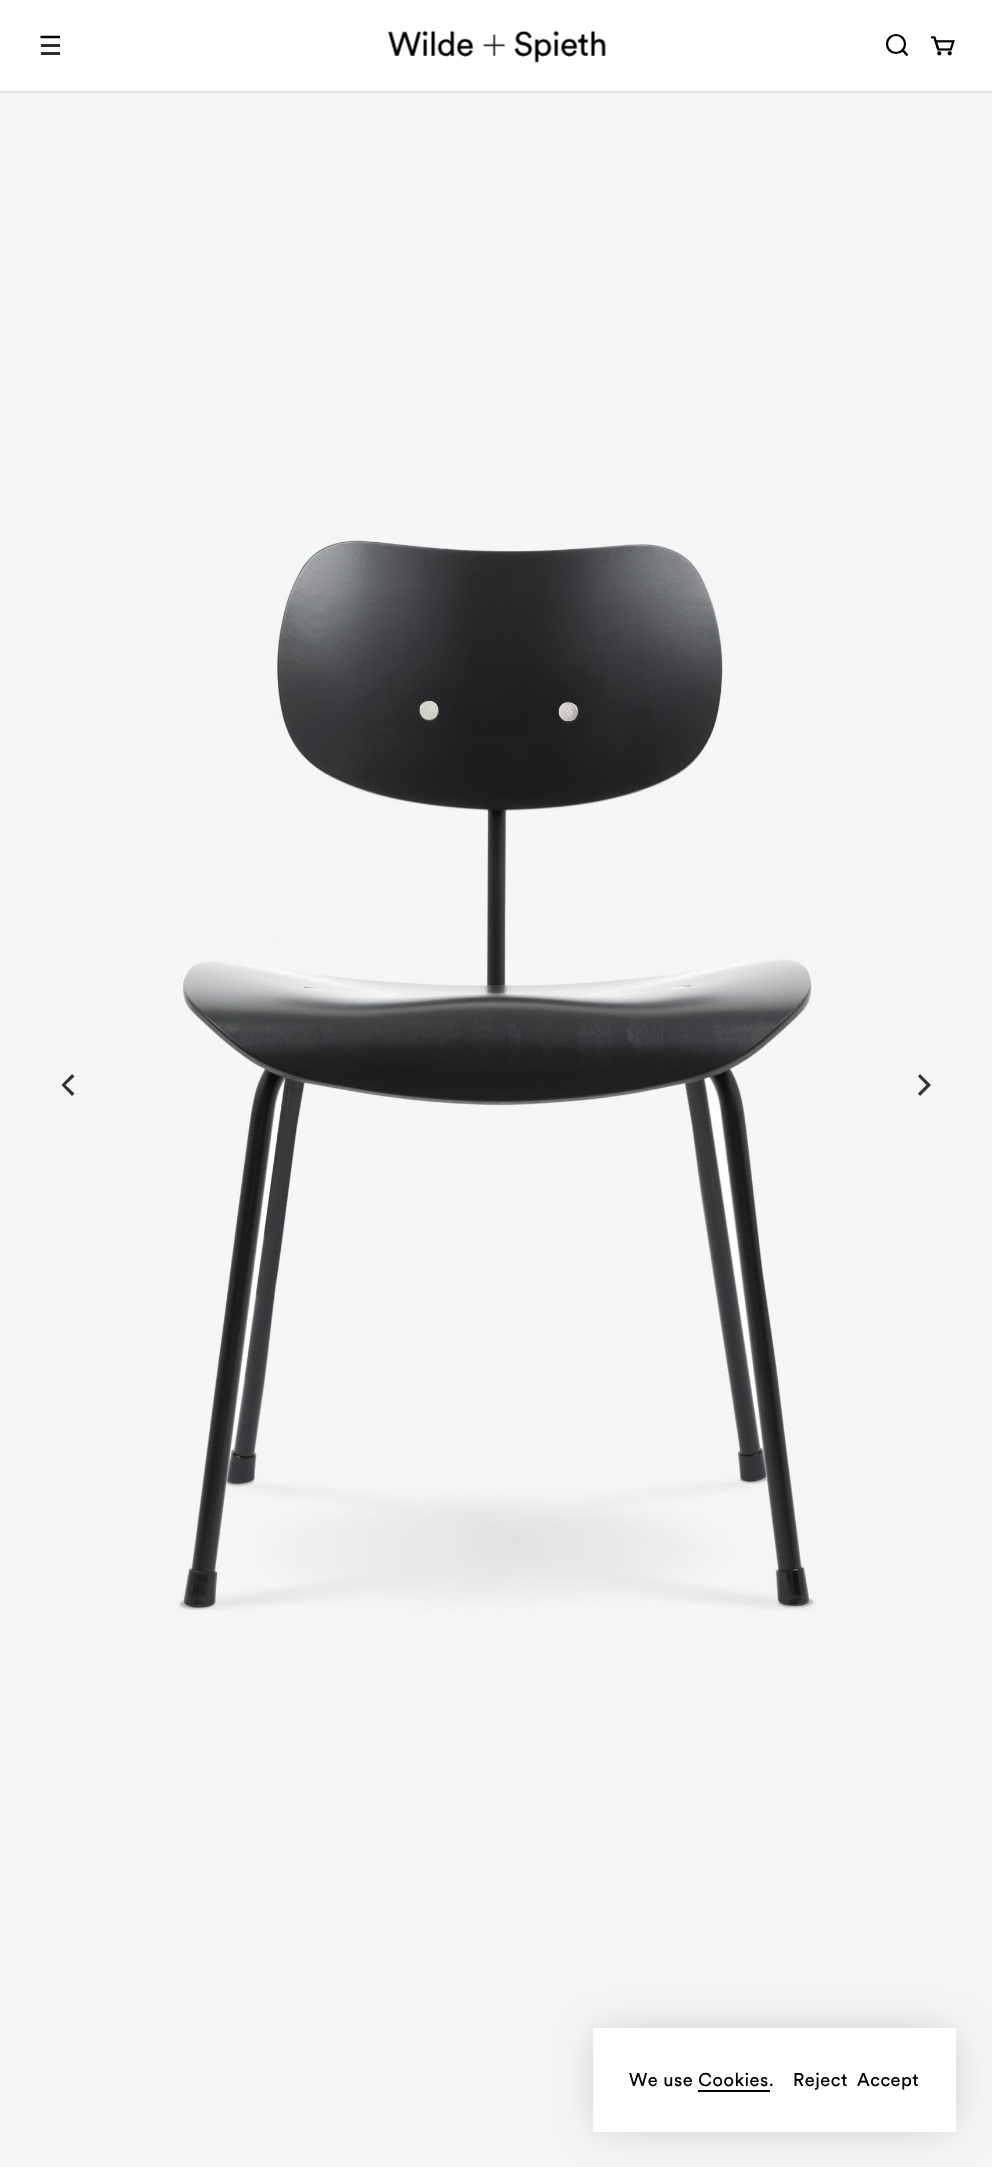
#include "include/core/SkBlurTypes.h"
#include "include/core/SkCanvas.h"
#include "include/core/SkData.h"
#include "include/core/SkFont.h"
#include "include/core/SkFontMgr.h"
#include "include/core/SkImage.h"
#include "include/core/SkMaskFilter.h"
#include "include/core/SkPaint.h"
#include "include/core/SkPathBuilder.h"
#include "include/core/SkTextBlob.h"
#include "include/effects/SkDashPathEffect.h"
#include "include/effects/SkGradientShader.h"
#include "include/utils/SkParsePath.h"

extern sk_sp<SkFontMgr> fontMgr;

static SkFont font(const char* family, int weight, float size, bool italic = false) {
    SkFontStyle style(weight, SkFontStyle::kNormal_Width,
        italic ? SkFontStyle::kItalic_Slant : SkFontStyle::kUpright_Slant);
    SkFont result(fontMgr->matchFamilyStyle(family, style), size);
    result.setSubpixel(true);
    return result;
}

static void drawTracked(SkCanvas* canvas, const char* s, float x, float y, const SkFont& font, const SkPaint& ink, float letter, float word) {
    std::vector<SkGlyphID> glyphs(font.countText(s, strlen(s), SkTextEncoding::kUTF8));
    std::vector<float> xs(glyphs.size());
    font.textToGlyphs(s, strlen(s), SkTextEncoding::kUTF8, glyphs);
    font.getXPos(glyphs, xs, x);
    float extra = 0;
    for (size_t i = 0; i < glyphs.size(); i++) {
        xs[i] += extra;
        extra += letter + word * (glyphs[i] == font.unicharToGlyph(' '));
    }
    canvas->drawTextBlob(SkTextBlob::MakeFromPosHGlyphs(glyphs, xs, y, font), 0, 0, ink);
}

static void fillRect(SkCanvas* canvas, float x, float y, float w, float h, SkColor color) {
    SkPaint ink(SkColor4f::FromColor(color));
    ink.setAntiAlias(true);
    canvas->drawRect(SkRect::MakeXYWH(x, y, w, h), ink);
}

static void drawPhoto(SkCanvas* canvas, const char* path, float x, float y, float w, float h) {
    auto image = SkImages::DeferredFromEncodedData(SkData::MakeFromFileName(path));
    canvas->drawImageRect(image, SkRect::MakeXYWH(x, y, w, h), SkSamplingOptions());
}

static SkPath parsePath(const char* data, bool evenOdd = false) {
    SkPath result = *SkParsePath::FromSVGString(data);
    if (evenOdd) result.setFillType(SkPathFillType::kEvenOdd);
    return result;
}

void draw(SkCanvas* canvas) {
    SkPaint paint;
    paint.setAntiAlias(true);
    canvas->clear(0xFFF6F6F6);
    fillRect(canvas, 0, 0, 992, 91, 0xFFFFFFFF);
    fillRect(canvas, 0, 91, 992, 2, 0xFFE1E1E1);
    paint.setStroke(true);
    paint.setStrokeWidth(2.5f);
    paint.setColor(0xFF000000);
    canvas->drawPath(parsePath("M40.5 37H60"), paint);
    fillRect(canvas, 41, 44, 19, 3, 0xFF2B2B2B);
    fillRect(canvas, 41, 52, 19, 3, 0xFF2B2B2B);
    drawPhoto(canvas, "assets/img1.png", 388, 30, 218, 33);
    paint.setStrokeWidth(2.2f);
    canvas->drawCircle(896, 44, 9, paint);
    paint.setStrokeWidth(2.5f);
    canvas->drawPath(parsePath("M902.5 50L907.5 55.5"), paint);
    drawPhoto(canvas, "assets/img2.png", 931, 36, 24, 20);
    paint.setStroke(false);
    paint.setColor(0xFF333333);
    canvas->drawPath(parsePath("M61.5 1085L72 1096L74.5 1093.5L65.5 1085L74.5 1076.5L72 1074Z"), paint);
    drawPhoto(canvas, "assets/img3.png", 177, 538, 640, 1073);
    canvas->drawPath(parsePath("M931 1085L920 1074L918 1076.5L926.5 1085L918 1093.5L920 1096Z"), paint);
    paint.setColor(0x33000000);
    paint.setMaskFilter(SkMaskFilter::MakeBlur(kNormal_SkBlurStyle, 20));
    canvas->drawRect(SkRect::MakeXYWH(599, 2034, 351, 92), paint);
    paint.setMaskFilter(nullptr);
    fillRect(canvas, 593, 2028, 363, 104, 0xFFFFFFFF);
    SkFont font1 = font("Circular", 400, 18.25f);
    paint.setColor(0xFF000000);
    drawTracked(canvas, "We use Cookies.", 629, 2086, font1, paint, 0.5f, 0);
    fillRect(canvas, 698, 2090, 72, 2, 0xFF000000);
    drawTracked(canvas, "Reject", 793, 2086, font1, paint, 0.5f, 0);
    drawTracked(canvas, "Accept", 857, 2086, font1, paint, 0.5f, 0);
}
